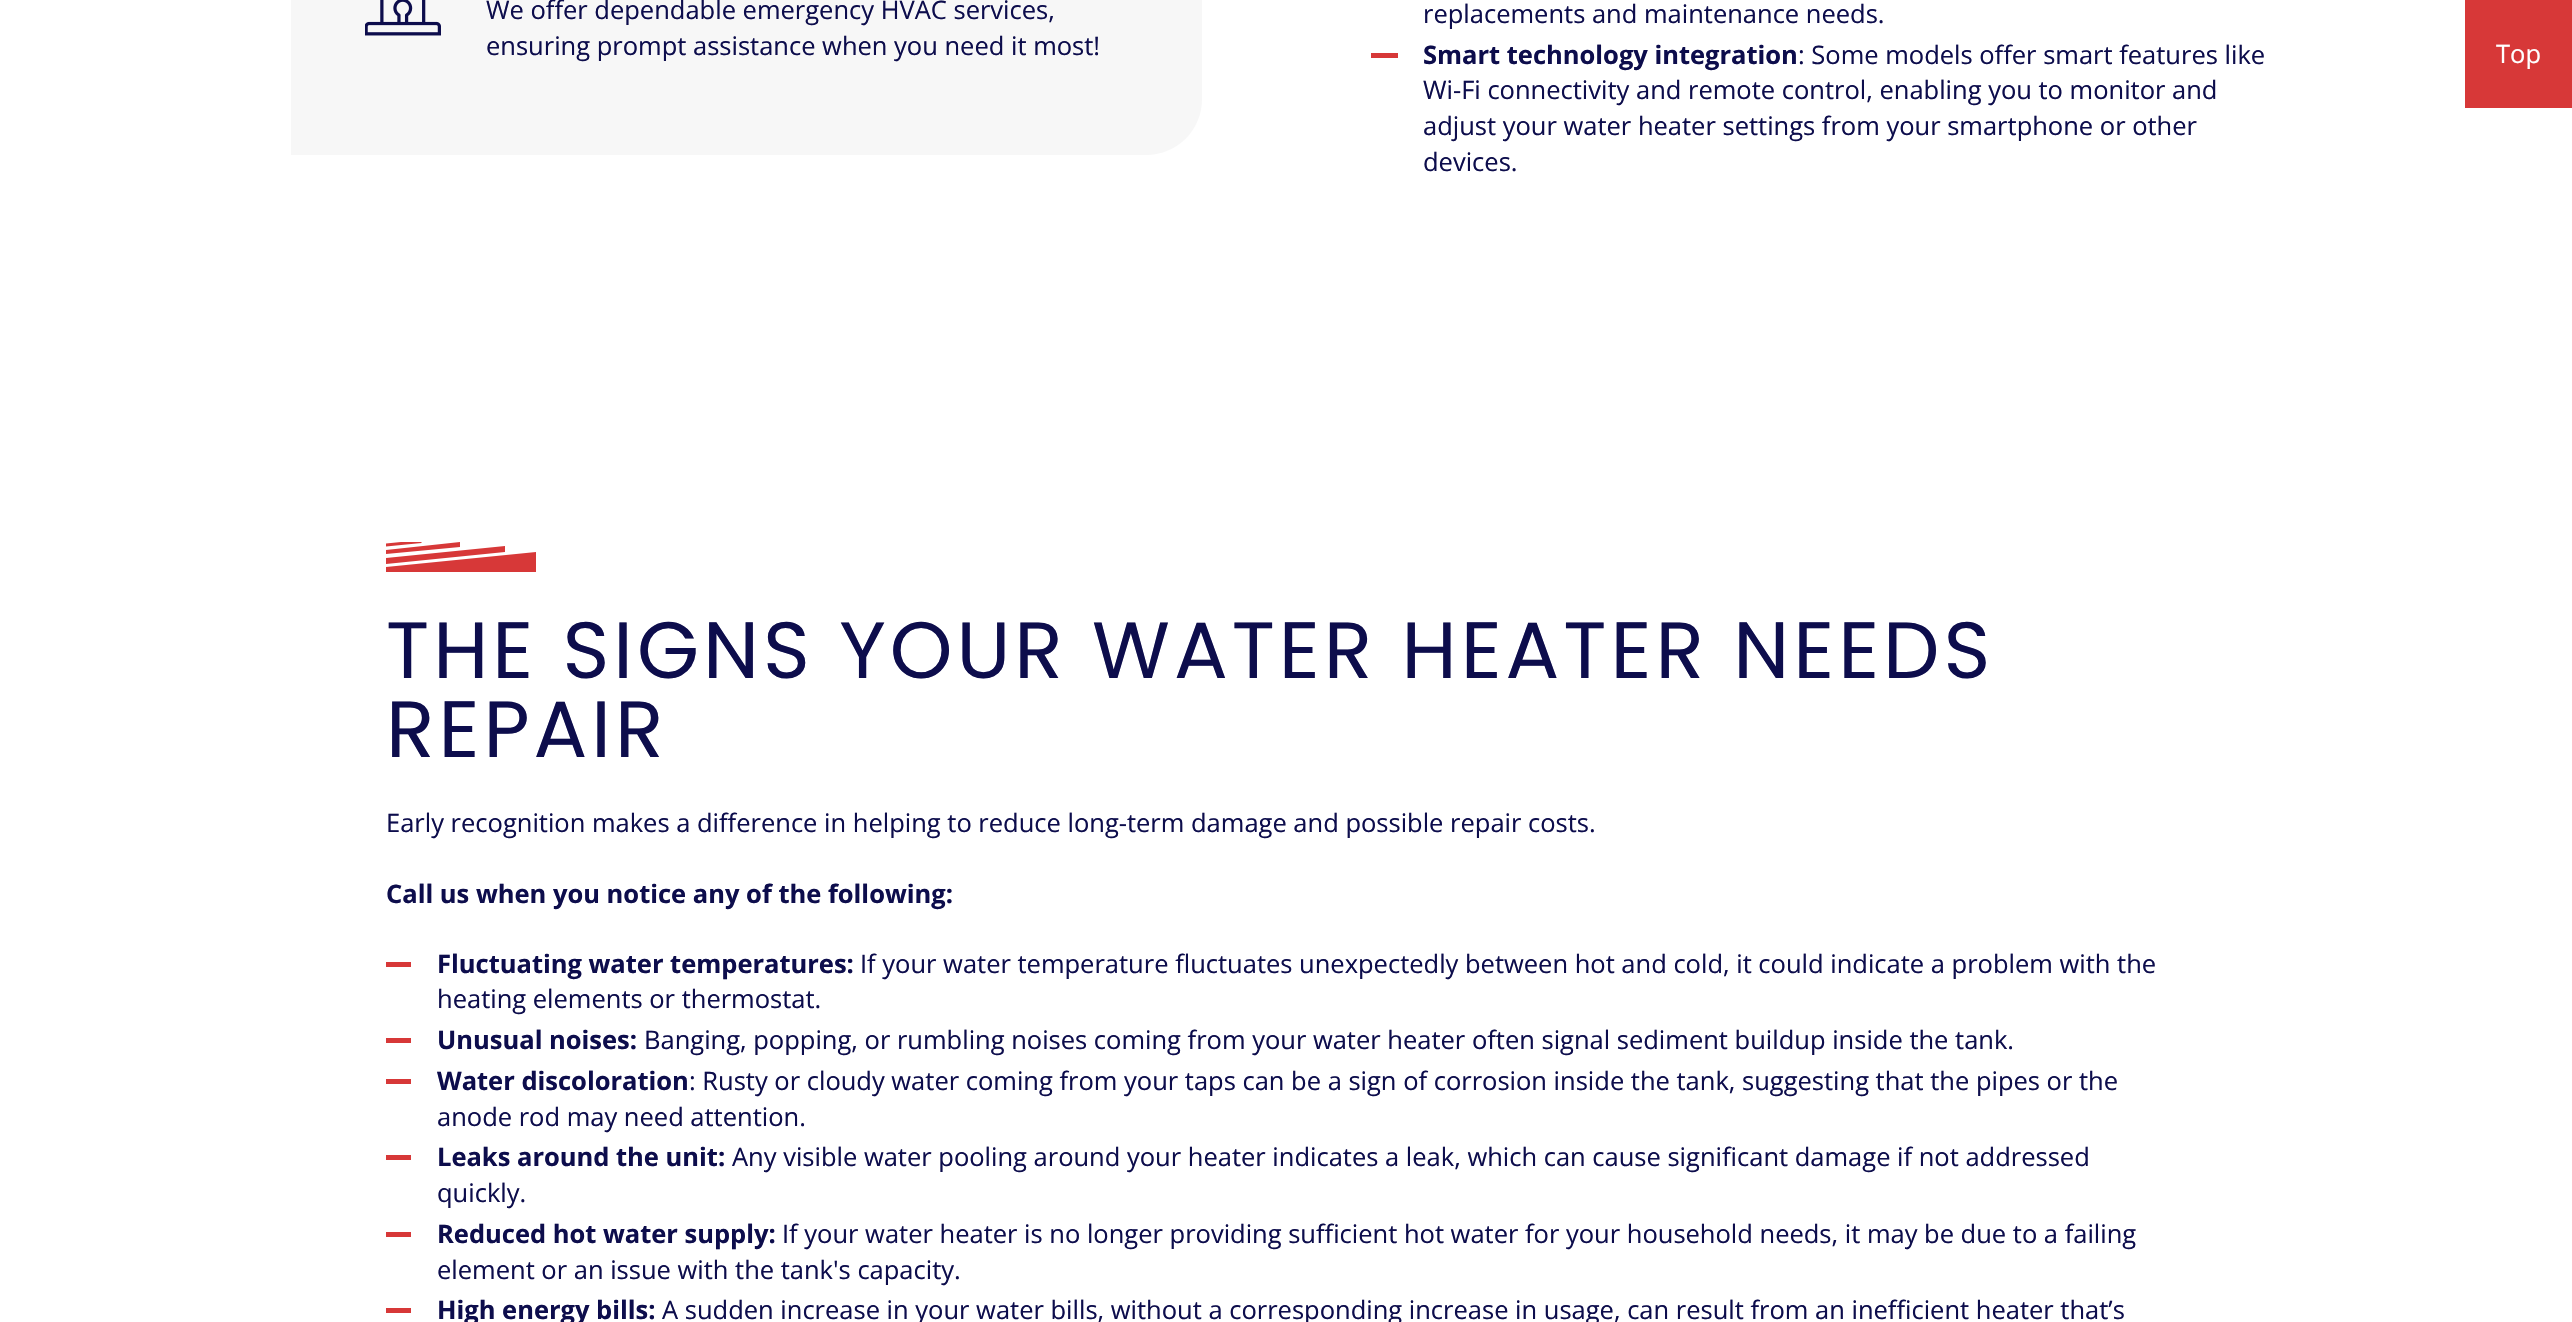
#include "include/core/SkBlurTypes.h"
#include "include/core/SkCanvas.h"
#include "include/core/SkData.h"
#include "include/core/SkFont.h"
#include "include/core/SkFontMgr.h"
#include "include/core/SkImage.h"
#include "include/core/SkMaskFilter.h"
#include "include/core/SkPaint.h"
#include "include/core/SkPathBuilder.h"
#include "include/core/SkTextBlob.h"
#include "include/effects/SkDashPathEffect.h"
#include "include/effects/SkGradientShader.h"
#include "include/utils/SkParsePath.h"

extern sk_sp<SkFontMgr> fontMgr;

static SkFont font(const char* family, int weight, float size, bool italic = false) {
    SkFontStyle style(weight, SkFontStyle::kNormal_Width,
        italic ? SkFontStyle::kItalic_Slant : SkFontStyle::kUpright_Slant);
    SkFont result(fontMgr->matchFamilyStyle(family, style), size);
    result.setSubpixel(true);
    return result;
}

static void drawLabel(SkCanvas* canvas, const char* s, float x, float y, const SkFont& font, SkColor color) {
    SkPaint ink(SkColor4f::FromColor(color));
    ink.setAntiAlias(true);
    canvas->drawString(s, x, y, font, ink);
}

static void drawTracked(SkCanvas* canvas, const char* s, float x, float y, const SkFont& font, const SkPaint& ink, float letter, float word) {
    std::vector<SkGlyphID> glyphs(font.countText(s, strlen(s), SkTextEncoding::kUTF8));
    std::vector<float> xs(glyphs.size());
    font.textToGlyphs(s, strlen(s), SkTextEncoding::kUTF8, glyphs);
    font.getXPos(glyphs, xs, x);
    float extra = 0;
    for (size_t i = 0; i < glyphs.size(); i++) {
        xs[i] += extra;
        extra += letter + word * (glyphs[i] == font.unicharToGlyph(' '));
    }
    canvas->drawTextBlob(SkTextBlob::MakeFromPosHGlyphs(glyphs, xs, y, font), 0, 0, ink);
}

static void fillRect(SkCanvas* canvas, float x, float y, float w, float h, SkColor color) {
    SkPaint ink(SkColor4f::FromColor(color));
    ink.setAntiAlias(true);
    canvas->drawRect(SkRect::MakeXYWH(x, y, w, h), ink);
}

static void drawPhoto(SkCanvas* canvas, const char* path, float x, float y, float w, float h) {
    auto image = SkImages::DeferredFromEncodedData(SkData::MakeFromFileName(path));
    canvas->drawImageRect(image, SkRect::MakeXYWH(x, y, w, h), SkSamplingOptions());
}

static SkPath parsePath(const char* data, bool evenOdd = false) {
    SkPath result = *SkParsePath::FromSVGString(data);
    if (evenOdd) result.setFillType(SkPathFillType::kEvenOdd);
    return result;
}

void draw(SkCanvas* canvas) {
    SkPaint paint;
    paint.setAntiAlias(true);
    canvas->clear(0xFFFFFFFF);
    paint.setColor(0xFFF7F7F7);
    canvas->drawPath(parsePath("M347-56H1202V99C1202 130 1177 155 1146 155H291V0C291-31 316-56 347-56Z"), paint);
    drawPhoto(canvas, "assets/img1.png", 365, 0, 76, 36);
    SkFont font1 = font("Open Sans", 400, 25.5f);
    drawLabel(canvas, "We offer dependable emergency HVAC services,", 486, 19, font1, 0xFF0D0D4C);
    drawLabel(canvas, "ensuring prompt assistance when you need it most!", 486, 55, font1, 0xFF0D0D4C);
    drawLabel(canvas, "replacements and maintenance needs.", 1423, 23, font1, 0xFF0D0D4C);
    fillRect(canvas, 1371, 53, 27, 5, 0xFFD73838);
    SkFont font2 = font("Open Sans", 700, 25.5f);
    drawLabel(canvas, "Smart technology integration", 1423, 64, font2, 0xFF0D0D4C);
    drawLabel(canvas, ": Some models offer smart features like", 1798, 64, font1, 0xFF0D0D4C);
    drawLabel(canvas, "Wi-Fi connectivity and remote control, enabling you to monitor and", 1423, 99, font1, 0xFF0D0D4C);
    drawLabel(canvas, "adjust your water heater settings from your smartphone or other", 1423, 135, font1, 0xFF0D0D4C);
    drawLabel(canvas, "devices.", 1423, 171, font1, 0xFF0D0D4C);
    canvas->save();
    canvas->clipRect(SkRect::MakeXYWH(386, 542, 150, 30));
    paint.setColor(0xFFD73838);
    canvas->drawPath(parsePath("M536 573H386V567L536 552Z"), paint);
    canvas->restore();
    canvas->drawPath(parsePath("M505 546L386 558V564L505 552Z"), paint);
    canvas->drawPath(parsePath("M460 542L386 550V554L460 547Z"), paint);
    canvas->save();
    canvas->clipRect(SkRect::MakeXYWH(386, 542, 150, 30));
    canvas->drawPath(parsePath("M421.5 540L385.5 543.5V546.5L421.5 543Z"), paint);
    canvas->restore();
    SkFont font3 = font("Poppins", 400, 79.75f);
    paint.setColor(0xFF0D0D4C);
    drawTracked(canvas, "THE SIGNS YOUR WATER HEATER NEEDS", 386, 678, font3, paint, 4, 0);
    drawTracked(canvas, "REPAIR", 386, 757, font3, paint, 4, 0);
    drawLabel(canvas, "Early recognition makes a difference in helping to reduce long-term damage and possible repair costs.", 386, 832, font1, 0xFF0D0D4C);
    drawLabel(canvas, "Call us when you notice any of the following:", 386, 903, font2, 0xFF0D0D4C);
    fillRect(canvas, 386, 962, 25, 5, 0xFFD73838);
    drawLabel(canvas, "Fluctuating water temperatures:", 437, 973, font2, 0xFF0D0D4C);
    drawLabel(canvas, "If your water temperature fluctuates unexpectedly between hot and cold, it could indicate a problem with the", 860, 973, font1, 0xFF0D0D4C);
    drawLabel(canvas, "heating elements or thermostat.", 437, 1008, font1, 0xFF0D0D4C);
    fillRect(canvas, 386, 1038, 25, 5, 0xFFD73838);
    drawLabel(canvas, "Unusual noises:", 437, 1049, font2, 0xFF0D0D4C);
    drawLabel(canvas, "Banging, popping, or rumbling noises coming from your water heater often signal sediment buildup inside the tank.", 644, 1049, font1, 0xFF0D0D4C);
    fillRect(canvas, 386, 1079, 25, 5, 0xFFD73838);
    drawLabel(canvas, "Water discoloration", 437, 1090, font2, 0xFF0D0D4C);
    drawLabel(canvas, ": Rusty or cloudy water coming from your taps can be a sign of corrosion inside the tank, suggesting that the pipes or the", 689, 1090, font1, 0xFF0D0D4C);
    drawLabel(canvas, "anode rod may need attention.", 437, 1126, font1, 0xFF0D0D4C);
    fillRect(canvas, 386, 1155, 25, 5, 0xFFD73838);
    drawLabel(canvas, "Leaks around the unit:", 437, 1166, font2, 0xFF0D0D4C);
    drawLabel(canvas, "Any visible water pooling around your heater indicates a leak, which can cause significant damage if not addressed", 732, 1166, font1, 0xFF0D0D4C);
    drawLabel(canvas, "quickly.", 437, 1202, font1, 0xFF0D0D4C);
    fillRect(canvas, 386, 1232, 25, 5, 0xFFD73838);
    drawLabel(canvas, "Reduced hot water supply:", 437, 1243, font2, 0xFF0D0D4C);
    drawLabel(canvas, "If your water heater is no longer providing sufficient hot water for your household needs, it may be due to a failing", 782, 1243, font1, 0xFF0D0D4C);
    drawLabel(canvas, "element or an issue with the tank's capacity.", 437, 1279, font1, 0xFF0D0D4C);
    fillRect(canvas, 386, 1308, 25, 5, 0xFFD73838);
    drawLabel(canvas, "High energy bills:", 437, 1319, font2, 0xFF0D0D4C);
    drawLabel(canvas, "A sudden increase in your water bills, without a corresponding increase in usage, can result from an inefficient heater that’s", 662, 1319, font1, 0xFF0D0D4C);
    fillRect(canvas, 2465, 0, 107, 108, 0xFFD73838);
    drawLabel(canvas, "Top", 2496, 63, font1, 0xFFFFFFFF);
}
